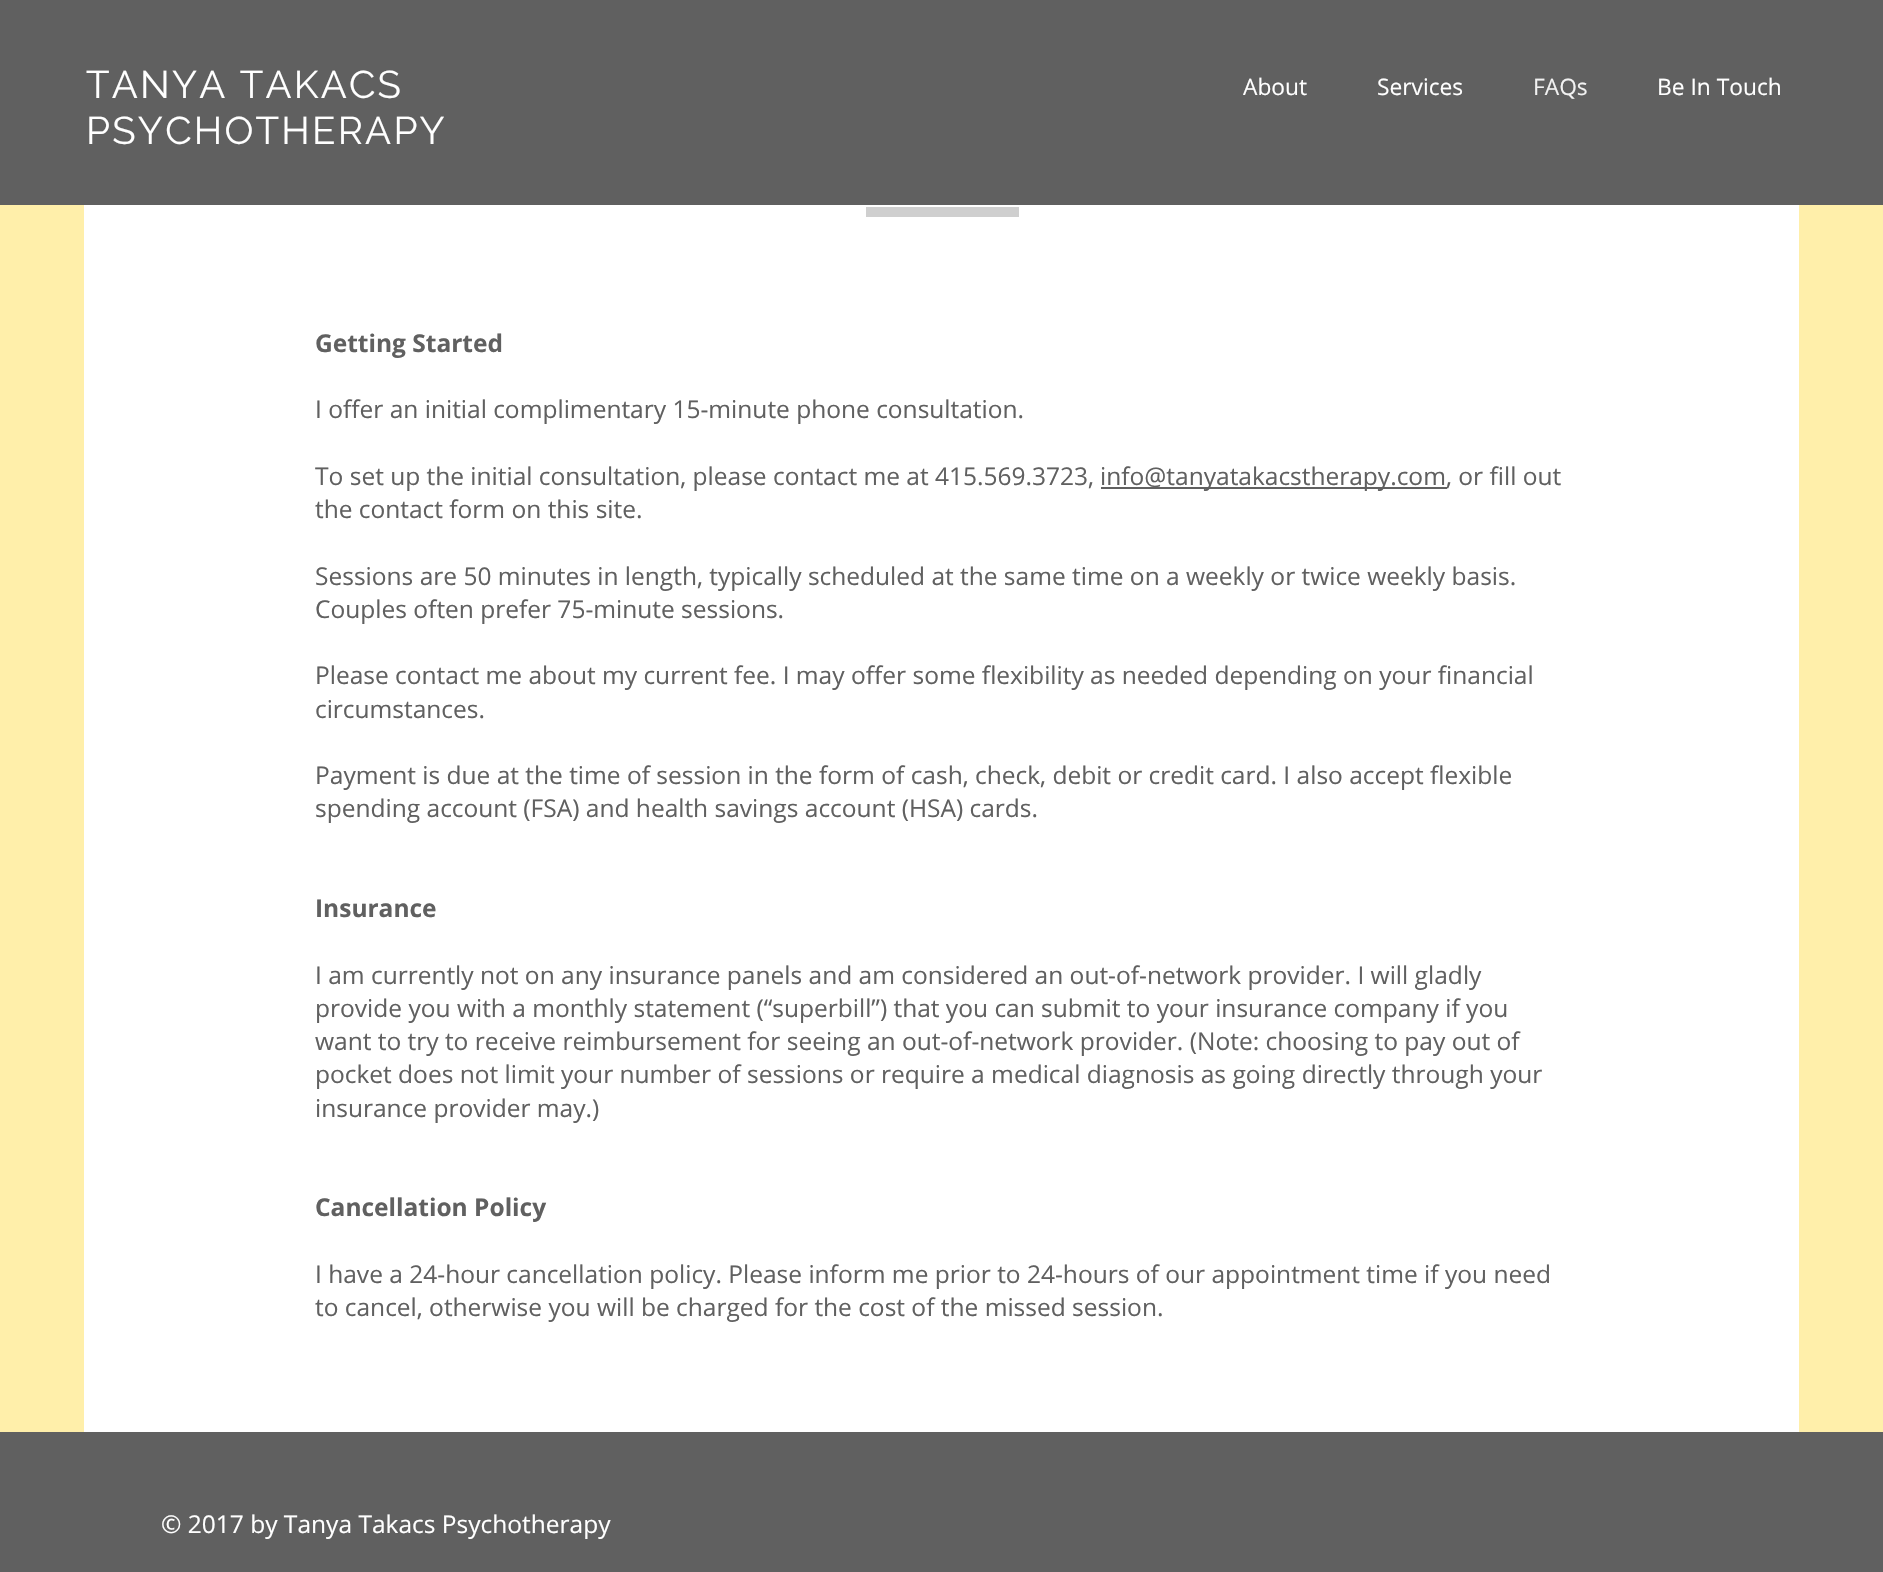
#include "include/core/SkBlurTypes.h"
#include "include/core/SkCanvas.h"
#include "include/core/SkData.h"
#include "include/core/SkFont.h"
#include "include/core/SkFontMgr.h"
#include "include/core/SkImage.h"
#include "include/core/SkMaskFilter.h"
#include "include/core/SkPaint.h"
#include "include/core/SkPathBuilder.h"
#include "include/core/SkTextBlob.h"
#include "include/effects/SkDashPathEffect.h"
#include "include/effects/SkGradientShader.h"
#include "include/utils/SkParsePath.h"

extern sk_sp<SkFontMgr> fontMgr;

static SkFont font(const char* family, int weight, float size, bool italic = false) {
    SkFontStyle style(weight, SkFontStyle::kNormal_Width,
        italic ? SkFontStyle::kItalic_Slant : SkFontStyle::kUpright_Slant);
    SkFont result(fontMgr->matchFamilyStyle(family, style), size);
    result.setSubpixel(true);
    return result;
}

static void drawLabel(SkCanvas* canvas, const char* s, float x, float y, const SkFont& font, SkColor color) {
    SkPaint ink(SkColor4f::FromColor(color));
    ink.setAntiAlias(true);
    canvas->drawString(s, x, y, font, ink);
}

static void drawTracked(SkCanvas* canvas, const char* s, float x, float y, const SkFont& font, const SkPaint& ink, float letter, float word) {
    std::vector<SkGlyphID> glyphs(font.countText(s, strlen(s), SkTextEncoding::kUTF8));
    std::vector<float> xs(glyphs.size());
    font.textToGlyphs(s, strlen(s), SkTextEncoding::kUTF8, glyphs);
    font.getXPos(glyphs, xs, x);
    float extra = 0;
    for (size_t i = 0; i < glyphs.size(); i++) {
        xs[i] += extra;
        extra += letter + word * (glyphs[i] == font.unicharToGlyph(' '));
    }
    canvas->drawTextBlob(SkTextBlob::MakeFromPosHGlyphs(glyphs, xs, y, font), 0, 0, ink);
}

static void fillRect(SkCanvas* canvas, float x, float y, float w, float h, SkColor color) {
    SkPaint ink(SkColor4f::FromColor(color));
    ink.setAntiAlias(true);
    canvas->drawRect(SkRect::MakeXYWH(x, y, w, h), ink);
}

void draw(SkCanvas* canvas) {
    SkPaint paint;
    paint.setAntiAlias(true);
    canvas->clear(0xFFFFEFAA);
    fillRect(canvas, 0, 0, 1883, 205, 0xFF606060);
    SkFont font1 = font("Raleway", 400, 38.5f);
    paint.setColor(0xFFFFFFFF);
    drawTracked(canvas, "TANYA TAKACS", 86, 98, font1, paint, 2.25f, 0);
    drawTracked(canvas, "PSYCHOTHERAPY", 86, 144, font1, paint, 2.25f, 0);
    SkFont font2 = font("Open Sans", 400, 22.75f);
    drawLabel(canvas, "About", 1243, 95, font2, 0xFFFFFFFF);
    drawLabel(canvas, "Services", 1377, 95, font2, 0xFFFFFFFF);
    drawLabel(canvas, "FAQs", 1533, 95, font2, 0xFFF2F2F2);
    drawLabel(canvas, "Be In Touch", 1657, 95, font2, 0xFFFFFFFF);
    fillRect(canvas, 84, 205, 1715, 1227, 0xFFFFFFFF);
    fillRect(canvas, 866, 207, 153, 10, 0xFFCFCFCF);
    SkFont font3 = font("Open Sans", 700, 24.5f);
    drawLabel(canvas, "Getting Started", 315, 352, font3, 0xFF606060);
    SkFont font4 = font("Open Sans", 400, 24.5f);
    drawLabel(canvas, "I offer an initial complimentary 15-minute phone consultation.", 315, 418, font4, 0xFF606060);
    drawLabel(canvas, "To set up the initial consultation, please contact me at 415.569.3723,", 315, 485, font4, 0xFF606060);
    fillRect(canvas, 1101, 487, 346, 2, 0xFF606060);
    drawLabel(canvas, "info@tanyatakacstherapy.com, or fill out", 1100, 485, font4, 0xFF606060);
    drawLabel(canvas, "the contact form on this site.", 315, 518, font4, 0xFF606060);
    drawLabel(canvas, "Sessions are 50 minutes in length, typically scheduled at the same time on a weekly or twice weekly basis.", 315, 585, font4, 0xFF606060);
    drawLabel(canvas, "Couples often prefer 75-minute sessions.", 315, 618, font4, 0xFF606060);
    drawLabel(canvas, "Please contact me about my current fee. I may offer some flexibility as needed depending on your financial", 315, 684, font4, 0xFF606060);
    drawLabel(canvas, "circumstances.", 315, 718, font4, 0xFF606060);
    drawLabel(canvas, "Payment is due at the time of session in the form of cash, check, debit or credit card. I also accept flexible", 315, 784, font4, 0xFF606060);
    drawLabel(canvas, "spending account (FSA) and health savings account (HSA) cards.", 315, 817, font4, 0xFF606060);
    drawLabel(canvas, "Insurance", 315, 917, font3, 0xFF606060);
    drawLabel(canvas, "I am currently not on any insurance panels and am considered an out-of-network provider. I will gladly", 315, 984, font4, 0xFF606060);
    drawLabel(canvas, "provide you with a monthly statement (“superbill”) that you can submit to your insurance company if you", 315, 1017, font4, 0xFF606060);
    drawLabel(canvas, "want to try to receive reimbursement for seeing an out-of-network provider. (Note: choosing to pay out of", 315, 1050, font4, 0xFF606060);
    drawLabel(canvas, "pocket does not limit your number of sessions or require a medical diagnosis as going directly through your", 315, 1083, font4, 0xFF606060);
    drawLabel(canvas, "insurance provider may.)", 315, 1117, font4, 0xFF606060);
    drawLabel(canvas, "Cancellation Policy", 315, 1216, font3, 0xFF606060);
    drawLabel(canvas, "I have a 24-hour cancellation policy. Please inform me prior to 24-hours of our appointment time if you need", 315, 1283, font4, 0xFF606060);
    drawLabel(canvas, "to cancel, otherwise you will be charged for the cost of the missed session.", 315, 1316, font4, 0xFF606060);
    fillRect(canvas, 0, 1432, 1883, 140, 0xFF606060);
    drawLabel(canvas, "© 2017 by Tanya Takacs Psychotherapy", 161, 1533, font4, 0xFFFFFFFF);
}
